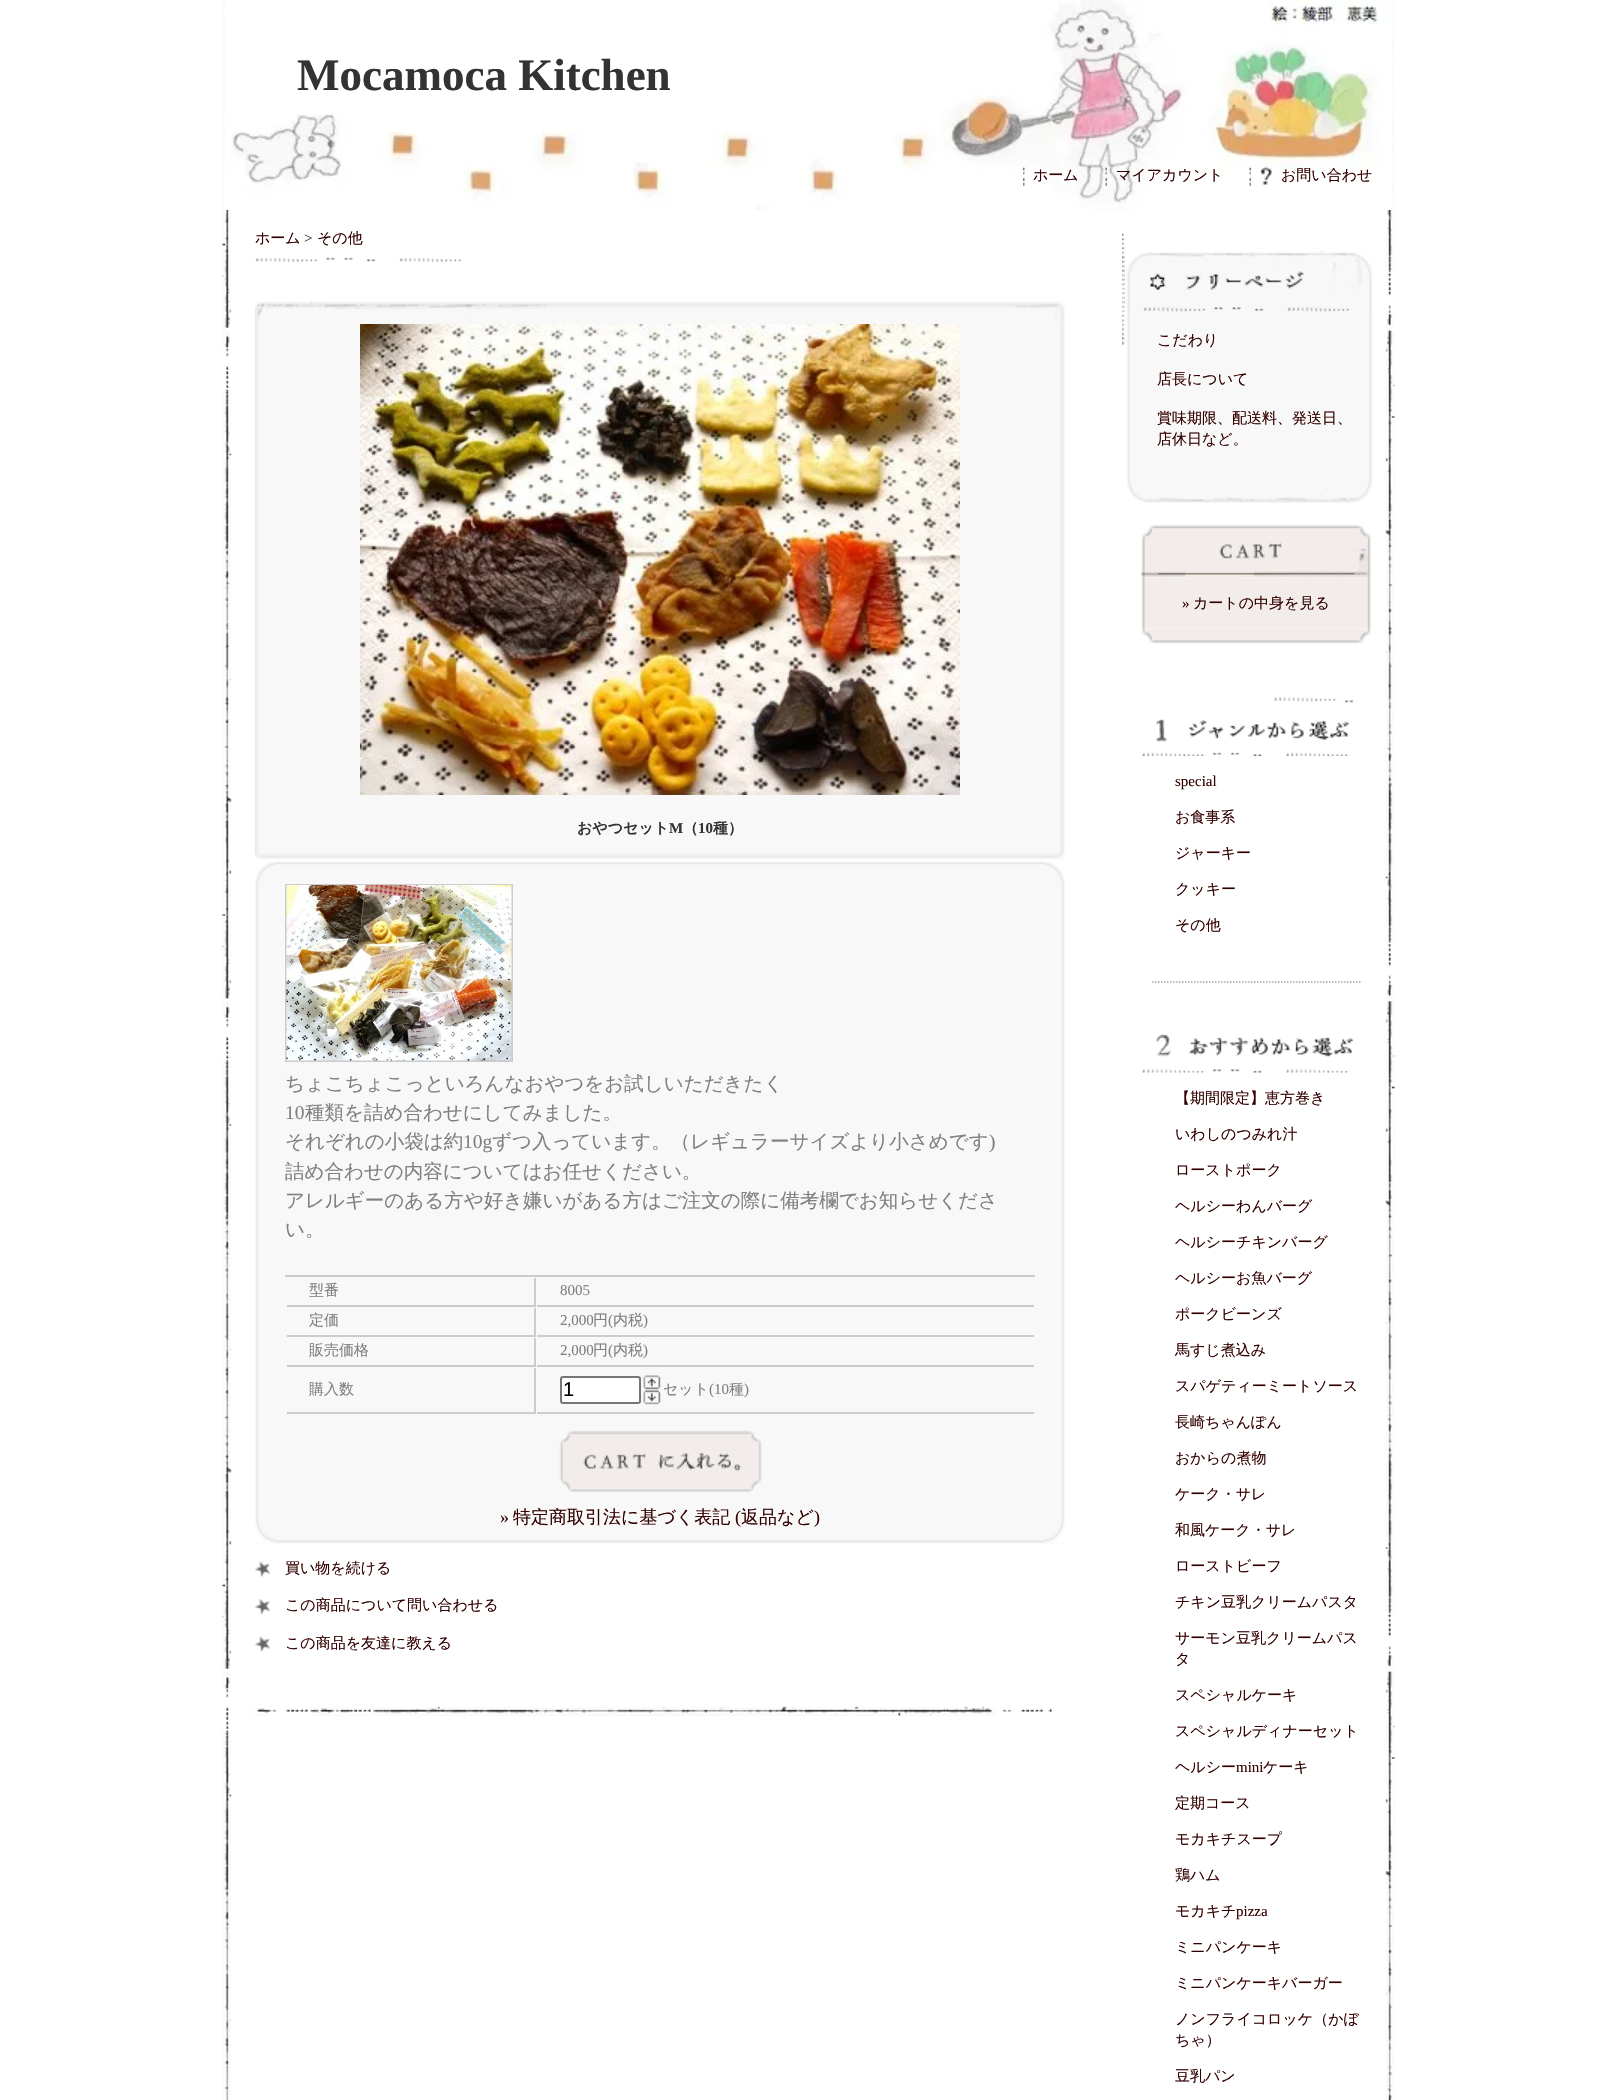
#include "include/core/SkBlurTypes.h"
#include "include/core/SkCanvas.h"
#include "include/core/SkData.h"
#include "include/core/SkFont.h"
#include "include/core/SkFontMgr.h"
#include "include/core/SkImage.h"
#include "include/core/SkMaskFilter.h"
#include "include/core/SkPaint.h"
#include "include/core/SkPathBuilder.h"
#include "include/core/SkTextBlob.h"
#include "include/effects/SkDashPathEffect.h"
#include "include/effects/SkGradientShader.h"
#include "include/utils/SkParsePath.h"

extern sk_sp<SkFontMgr> fontMgr;

static SkFont font(const char* family, int weight, float size, bool italic = false) {
    SkFontStyle style(weight, SkFontStyle::kNormal_Width,
        italic ? SkFontStyle::kItalic_Slant : SkFontStyle::kUpright_Slant);
    SkFont result(fontMgr->matchFamilyStyle(family, style), size);
    result.setSubpixel(true);
    return result;
}

static void drawLabel(SkCanvas* canvas, const char* s, float x, float y, const SkFont& font, SkColor color) {
    SkPaint ink(SkColor4f::FromColor(color));
    ink.setAntiAlias(true);
    canvas->drawString(s, x, y, font, ink);
}

static void fillRect(SkCanvas* canvas, float x, float y, float w, float h, SkColor color) {
    SkPaint ink(SkColor4f::FromColor(color));
    ink.setAntiAlias(true);
    canvas->drawRect(SkRect::MakeXYWH(x, y, w, h), ink);
}

static void drawPhoto(SkCanvas* canvas, const char* path, float x, float y, float w, float h) {
    auto image = SkImages::DeferredFromEncodedData(SkData::MakeFromFileName(path));
    canvas->drawImageRect(image, SkRect::MakeXYWH(x, y, w, h), SkSamplingOptions());
}

static SkPath parsePath(const char* data, bool evenOdd = false) {
    SkPath result = *SkParsePath::FromSVGString(data);
    if (evenOdd) result.setFillType(SkPathFillType::kEvenOdd);
    return result;
}

void draw(SkCanvas* canvas) {
    SkPaint paint;
    paint.setAntiAlias(true);
    canvas->clear(0xFFFFFFFF);
    drawPhoto(canvas, "assets/img1.png", 222, 0, 1173, 2100);
    drawPhoto(canvas, "assets/img2.png", 225, 0, 1167, 210);
    SkFont font1 = font("Liberation Serif", 700, 45);
    drawLabel(canvas, "Mocamoca Kitchen", 297, 90, font1, 0xFF333333);
    drawPhoto(canvas, "assets/img3.png", 1023, 166, 2, 20);
    SkFont font2 = font("WenQuanYi Zen Hei", 500, 15);
    drawLabel(canvas, "ホーム", 1033, 180, font2, 0xFF330000);
    drawPhoto(canvas, "assets/img4.png", 1105, 167, 2, 19);
    drawLabel(canvas, "マイアカウント", 1116, 180, font2, 0xFF330000);
    drawPhoto(canvas, "assets/img5.png", 1249, 166, 2, 20);
    drawPhoto(canvas, "assets/img6.png", 1260, 166, 12, 19);
    drawLabel(canvas, "お問い合わせ", 1281, 180, font2, 0xFF330000);
    drawPhoto(canvas, "assets/img7.png", 1122, 233, 3, 112);
    drawPhoto(canvas, "assets/img8.png", 255, 257, 209, 6);
    drawLabel(canvas, "ホーム", 255, 243, font2, 0xFF330000);
    SkFont font3 = font("Liberation Serif", 400, 15);
    drawLabel(canvas, ">", 304, 243, font3, 0xFF333333);
    drawLabel(canvas, "その他", 317, 243, font2, 0xFF330000);
    drawPhoto(canvas, "assets/img9.png", 255, 1706, 797, 10);
    drawPhoto(canvas, "assets/img10.png", 255, 301, 810, 552);
    drawPhoto(canvas, "assets/img11.png", 255, 301, 810, 22);
    drawPhoto(canvas, "assets/img12.png", 360, 324, 600, 471);
    drawPhoto(canvas, "assets/img13.png", 255, 853, 810, 8);
    SkFont font4 = font("WenQuanYi Zen Hei", 700, 15);
    drawLabel(canvas, "おやつセット", 577, 833, font4, 0xFF333333);
    SkFont font5 = font("Liberation Serif", 700, 15);
    drawLabel(canvas, "M", 669, 833, font5, 0xFF333333);
    drawLabel(canvas, "（", 683, 833, font4, 0xFF333333);
    drawLabel(canvas, "10", 698, 833, font5, 0xFF333333);
    drawLabel(canvas, "種）", 713, 833, font4, 0xFF333333);
    drawPhoto(canvas, "assets/img14.png", 255, 882, 810, 662);
    drawPhoto(canvas, "assets/img15.png", 255, 861, 810, 21);
    drawPhoto(canvas, "assets/img16.png", 255, 1522, 810, 22);
    paint.setStroke(true);
    paint.setStrokeWidth(2);
    paint.setColor(0xFFCCCCCC);
    canvas->drawRect(SkRect::MakeXYWH(286, 885, 226, 176), paint);
    drawPhoto(canvas, "assets/img17.png", 286, 885, 226, 176);
    SkFont font6 = font("WenQuanYi Zen Hei", 500, 19.5f);
    drawLabel(canvas, "ちょこちょこっといろんなおやつをお試しいただきたく", 285, 1090, font6, 0xFF808080);
    SkFont font7 = font("Liberation Serif", 400, 19.5f);
    drawLabel(canvas, "10", 285, 1119, font7, 0xFF808080);
    drawLabel(canvas, "種類を詰め合わせにしてみました。", 305, 1119, font6, 0xFF808080);
    drawLabel(canvas, "それぞれの小袋は約", 285, 1148, font6, 0xFF808080);
    drawLabel(canvas, "10g", 463, 1148, font7, 0xFF808080);
    drawLabel(canvas, "ずつ入っています。（レギュラーサイズより小さめです", 492, 1148, font6, 0xFF808080);
    drawLabel(canvas, ")", 989, 1148, font7, 0xFF808080);
    drawLabel(canvas, "詰め合わせの内容についてはお任せください。", 285, 1178, font6, 0xFF808080);
    drawLabel(canvas, "アレルギーのある方や好き嫌いがある方はご注文の際に備考欄でお知らせくださ", 285, 1207, font6, 0xFF808080);
    drawLabel(canvas, "い。", 285, 1236, font6, 0xFF808080);
    fillRect(canvas, 285, 1275, 750, 2, 0xFFCCCCCC);
    fillRect(canvas, 534, 1278, 2, 29, 0xFFCCCCCC);
    fillRect(canvas, 287, 1305, 249, 2, 0xFFCCCCCC);
    drawLabel(canvas, "型番", 309, 1295, font2, 0xFF808080);
    fillRect(canvas, 537, 1305, 497, 2, 0xFFCCCCCC);
    drawLabel(canvas, "8005", 560, 1295, font3, 0xFF808080);
    fillRect(canvas, 534, 1308, 2, 29, 0xFFCCCCCC);
    fillRect(canvas, 287, 1335, 249, 2, 0xFFCCCCCC);
    drawLabel(canvas, "定価", 309, 1325, font2, 0xFF808080);
    fillRect(canvas, 537, 1335, 497, 2, 0xFFCCCCCC);
    drawLabel(canvas, "2,000", 560, 1325, font3, 0xFF808080);
    drawLabel(canvas, "円", 593, 1325, font2, 0xFF808080);
    drawLabel(canvas, "(", 608, 1325, font3, 0xFF808080);
    drawLabel(canvas, "内税", 613, 1325, font2, 0xFF808080);
    drawLabel(canvas, ")", 643, 1325, font3, 0xFF808080);
    fillRect(canvas, 534, 1338, 2, 29, 0xFFCCCCCC);
    fillRect(canvas, 287, 1365, 249, 2, 0xFFCCCCCC);
    drawLabel(canvas, "販売価格", 309, 1355, font2, 0xFF808080);
    fillRect(canvas, 537, 1365, 497, 2, 0xFFCCCCCC);
    drawLabel(canvas, "2,000", 560, 1355, font3, 0xFF808080);
    drawLabel(canvas, "円", 593, 1355, font2, 0xFF808080);
    drawLabel(canvas, "(", 608, 1355, font3, 0xFF808080);
    drawLabel(canvas, "内税", 613, 1355, font2, 0xFF808080);
    drawLabel(canvas, ")", 643, 1355, font3, 0xFF808080);
    fillRect(canvas, 534, 1368, 2, 45, 0xFFCCCCCC);
    fillRect(canvas, 287, 1412, 249, 2, 0xFFCCCCCC);
    drawLabel(canvas, "購入数", 309, 1394, font2, 0xFF808080);
    fillRect(canvas, 537, 1412, 497, 2, 0xFFCCCCCC);
    paint.setStroke(false);
    paint.setColor(0xFFFFFFFF);
    canvas->drawRoundRect(SkRect::MakeXYWH(561, 1377, 79, 26), 2, 2, paint);
    paint.setStroke(true);
    paint.setColor(0xFF767676);
    canvas->drawRoundRect(SkRect::MakeXYWH(561, 1377, 79, 26), 2, 2, paint);
    SkFont font8 = font("Liberation Sans", 400, 20);
    drawLabel(canvas, "1", 563, 1396, font8, 0xFF000000);
    drawPhoto(canvas, "assets/img18.png", 643, 1375, 18, 15);
    drawPhoto(canvas, "assets/img19.png", 643, 1390, 18, 15);
    drawLabel(canvas, "セット", 663, 1394, font2, 0xFF808080);
    drawLabel(canvas, "(10", 709, 1394, font3, 0xFF808080);
    drawLabel(canvas, "種", 729, 1394, font2, 0xFF808080);
    drawLabel(canvas, ")", 744, 1394, font3, 0xFF808080);
    drawPhoto(canvas, "assets/img20.png", 559, 1430, 203, 63);
    SkFont font9 = font("Liberation Serif", 400, 18);
    drawLabel(canvas, "»", 500, 1523, font9, 0xFF330000);
    SkFont font10 = font("WenQuanYi Zen Hei", 500, 18);
    drawLabel(canvas, "特定商取引法に基づく表記", 513, 1523, font10, 0xFF330000);
    drawLabel(canvas, "(", 735, 1523, font9, 0xFF330000);
    drawLabel(canvas, "返品など", 741, 1523, font10, 0xFF330000);
    drawLabel(canvas, ")", 814, 1523, font9, 0xFF330000);
    drawPhoto(canvas, "assets/img21.png", 255, 1561, 15, 16);
    drawLabel(canvas, "買い物を続ける", 285, 1573, font2, 0xFF330000);
    drawPhoto(canvas, "assets/img22.png", 255, 1599, 15, 15);
    drawLabel(canvas, "この商品について問い合わせる", 285, 1610, font2, 0xFF330000);
    drawPhoto(canvas, "assets/img21.png", 255, 1636, 15, 16);
    drawLabel(canvas, "この商品を友達に教える", 285, 1648, font2, 0xFF330000);
    drawPhoto(canvas, "assets/img23.png", 1126, 480, 247, 23);
    drawPhoto(canvas, "assets/img24.png", 1126, 250, 247, 62);
    drawPhoto(canvas, "assets/img25.png", 1126, 312, 247, 168);
    drawLabel(canvas, "こだわり", 1157, 345, font2, 0xFF330000);
    drawLabel(canvas, "店長について", 1157, 384, font2, 0xFF330000);
    drawLabel(canvas, "賞味期限、配送料、発送日、", 1157, 423, font2, 0xFF330000);
    drawLabel(canvas, "店休日など。", 1157, 444, font2, 0xFF330000);
    drawPhoto(canvas, "assets/img26.png", 1141, 628, 230, 16);
    drawPhoto(canvas, "assets/img27.png", 1141, 525, 230, 53);
    drawPhoto(canvas, "assets/img28.png", 1141, 577, 230, 52);
    drawLabel(canvas, "»", 1182, 608, font3, 0xFF330000);
    drawLabel(canvas, "カートの中身を見る", 1193, 608, font2, 0xFF330000);
    drawPhoto(canvas, "assets/img29.png", 1141, 718, 38, 38);
    drawPhoto(canvas, "assets/img30.png", 1179, 697, 174, 59);
    drawLabel(canvas, "special", 1175, 786, font3, 0xFF330000);
    drawLabel(canvas, "お食事系", 1175, 822, font2, 0xFF330000);
    drawLabel(canvas, "ジャーキー", 1175, 858, font2, 0xFF330000);
    drawLabel(canvas, "クッキー", 1175, 894, font2, 0xFF330000);
    drawLabel(canvas, "その他", 1175, 930, font2, 0xFF330000);
    paint.setStrokeWidth(1.5f);
    paint.setColor(0xFFA7A7A7);
    paint.setPathEffect(SkDashPathEffect::Make({{1.5f, 1.5f}}, 0));
    canvas->drawPath(parsePath("M1152 982H1362"), paint);
    paint.setPathEffect(nullptr);
    drawPhoto(canvas, "assets/img31.png", 1141, 1034, 38, 39);
    drawPhoto(canvas, "assets/img32.png", 1179, 1037, 174, 36);
    drawLabel(canvas, "【期間限定】恵方巻き", 1175, 1103, font2, 0xFF330000);
    drawLabel(canvas, "いわしのつみれ汁", 1175, 1139, font2, 0xFF330000);
    drawLabel(canvas, "ローストポーク", 1175, 1175, font2, 0xFF330000);
    drawLabel(canvas, "ヘルシーわんバーグ", 1175, 1211, font2, 0xFF330000);
    drawLabel(canvas, "ヘルシーチキンバーグ", 1175, 1247, font2, 0xFF330000);
    drawLabel(canvas, "ヘルシーお魚バーグ", 1175, 1283, font2, 0xFF330000);
    drawLabel(canvas, "ポークビーンズ", 1175, 1319, font2, 0xFF330000);
    drawLabel(canvas, "馬すじ煮込み", 1175, 1355, font2, 0xFF330000);
    drawLabel(canvas, "スパゲティーミートソース", 1175, 1391, font2, 0xFF330000);
    drawLabel(canvas, "長崎ちゃんぽん", 1175, 1427, font2, 0xFF330000);
    drawLabel(canvas, "おからの煮物", 1175, 1463, font2, 0xFF330000);
    drawLabel(canvas, "ケーク・サレ", 1175, 1499, font2, 0xFF330000);
    drawLabel(canvas, "和風ケーク・サレ", 1175, 1535, font2, 0xFF330000);
    drawLabel(canvas, "ローストビーフ", 1175, 1571, font2, 0xFF330000);
    drawLabel(canvas, "チキン豆乳クリームパスタ", 1175, 1607, font2, 0xFF330000);
    drawLabel(canvas, "サーモン豆乳クリームパス", 1175, 1643, font2, 0xFF330000);
    drawLabel(canvas, "タ", 1175, 1664, font2, 0xFF330000);
    drawLabel(canvas, "スペシャルケーキ", 1175, 1700, font2, 0xFF330000);
    drawLabel(canvas, "スペシャルディナーセット", 1175, 1736, font2, 0xFF330000);
    drawLabel(canvas, "ヘルシー", 1175, 1772, font2, 0xFF330000);
    drawLabel(canvas, "mini", 1236, 1772, font3, 0xFF330000);
    drawLabel(canvas, "ケーキ", 1263, 1772, font2, 0xFF330000);
    drawLabel(canvas, "定期コース", 1175, 1808, font2, 0xFF330000);
    drawLabel(canvas, "モカキチスープ", 1175, 1844, font2, 0xFF330000);
    drawLabel(canvas, "鶏ハム", 1175, 1880, font2, 0xFF330000);
    drawLabel(canvas, "モカキチ", 1175, 1916, font2, 0xFF330000);
    drawLabel(canvas, "pizza", 1236, 1916, font3, 0xFF330000);
    drawLabel(canvas, "ミニパンケーキ", 1175, 1952, font2, 0xFF330000);
    drawLabel(canvas, "ミニパンケーキバーガー", 1175, 1988, font2, 0xFF330000);
    drawLabel(canvas, "ノンフライコロッケ（かぼ", 1175, 2024, font2, 0xFF330000);
    drawLabel(canvas, "ちゃ）", 1175, 2045, font2, 0xFF330000);
    drawLabel(canvas, "豆乳パン", 1175, 2081, font2, 0xFF330000);
}
